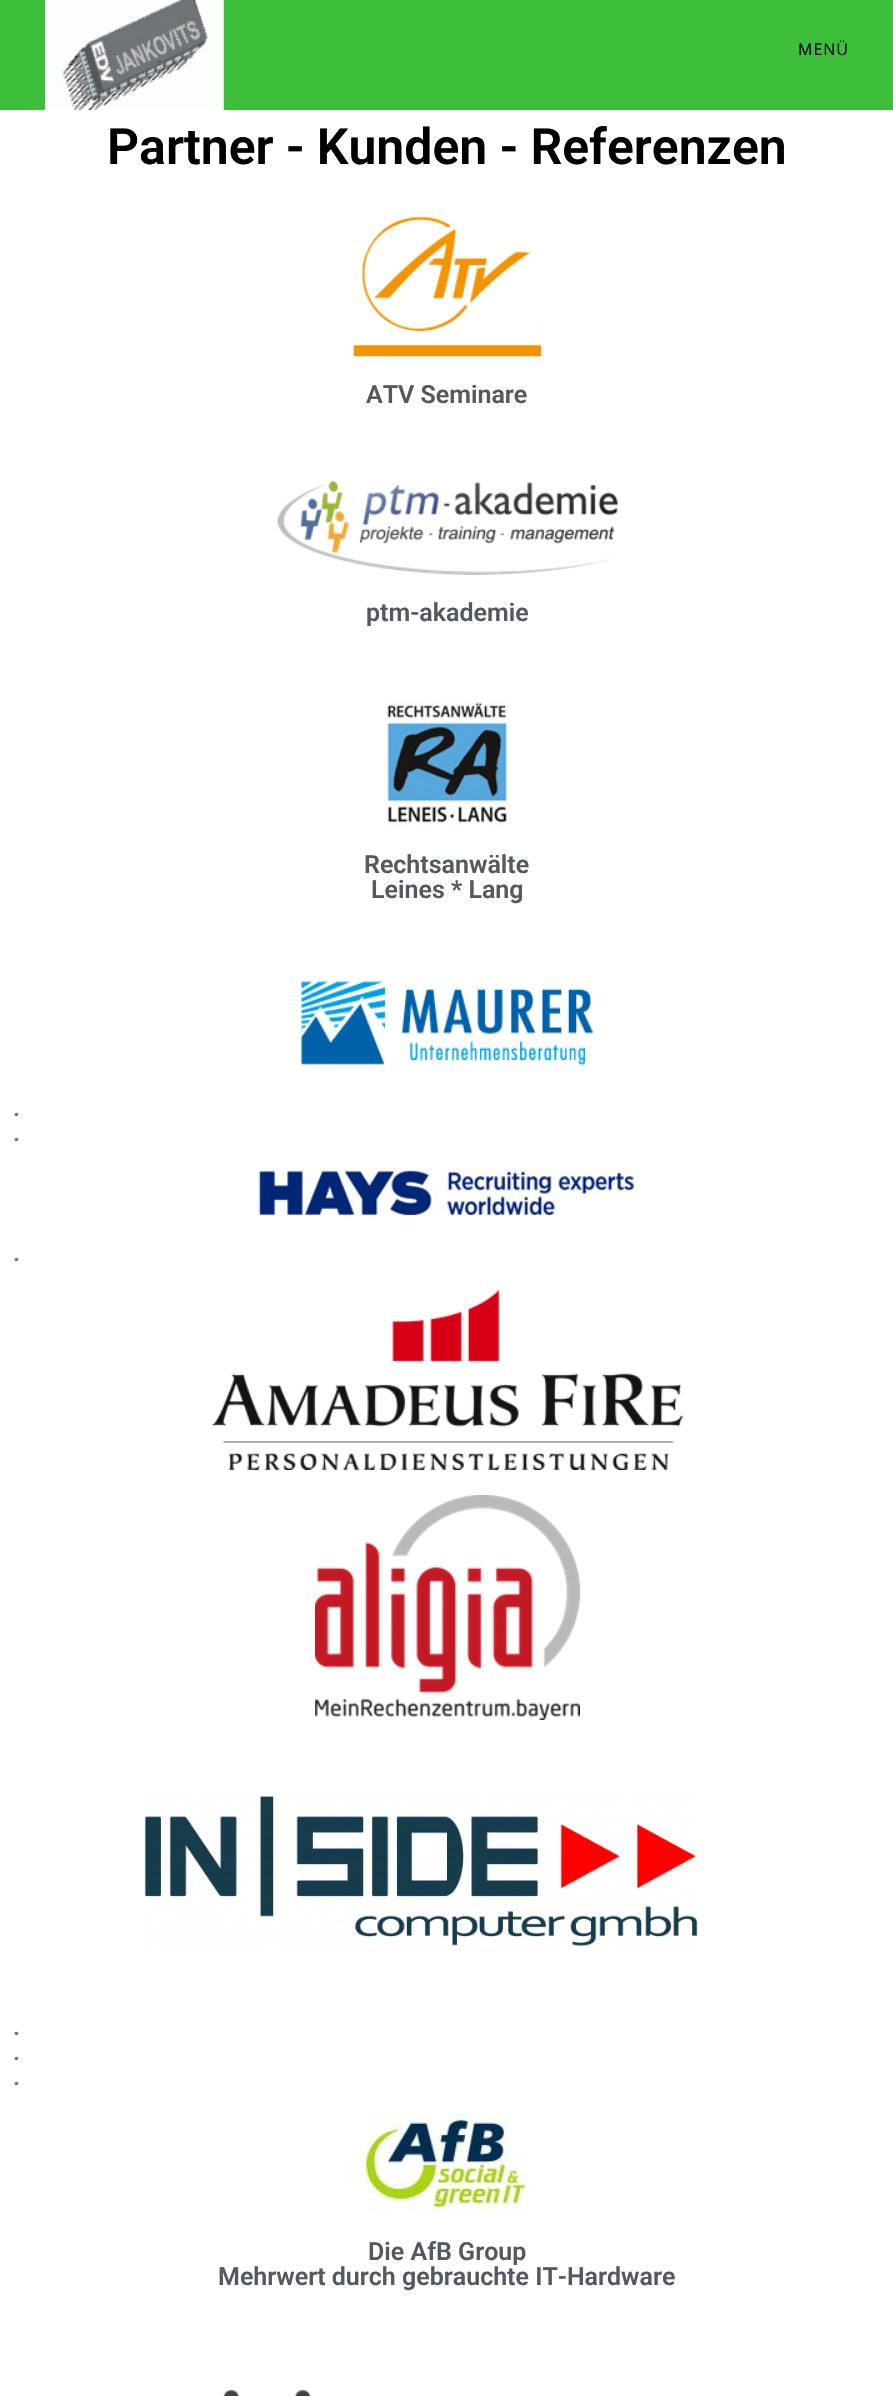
#include "include/core/SkBlurTypes.h"
#include "include/core/SkCanvas.h"
#include "include/core/SkData.h"
#include "include/core/SkFont.h"
#include "include/core/SkFontMgr.h"
#include "include/core/SkImage.h"
#include "include/core/SkMaskFilter.h"
#include "include/core/SkPaint.h"
#include "include/core/SkPathBuilder.h"
#include "include/core/SkTextBlob.h"
#include "include/effects/SkDashPathEffect.h"
#include "include/effects/SkGradientShader.h"
#include "include/utils/SkParsePath.h"

extern sk_sp<SkFontMgr> fontMgr;

static SkFont font(const char* family, int weight, float size, bool italic = false) {
    SkFontStyle style(weight, SkFontStyle::kNormal_Width,
        italic ? SkFontStyle::kItalic_Slant : SkFontStyle::kUpright_Slant);
    SkFont result(fontMgr->matchFamilyStyle(family, style), size);
    result.setSubpixel(true);
    return result;
}

static void drawLabel(SkCanvas* canvas, const char* s, float x, float y, const SkFont& font, SkColor color) {
    SkPaint ink(SkColor4f::FromColor(color));
    ink.setAntiAlias(true);
    canvas->drawString(s, x, y, font, ink);
}

static void drawTracked(SkCanvas* canvas, const char* s, float x, float y, const SkFont& font, const SkPaint& ink, float letter, float word) {
    std::vector<SkGlyphID> glyphs(font.countText(s, strlen(s), SkTextEncoding::kUTF8));
    std::vector<float> xs(glyphs.size());
    font.textToGlyphs(s, strlen(s), SkTextEncoding::kUTF8, glyphs);
    font.getXPos(glyphs, xs, x);
    float extra = 0;
    for (size_t i = 0; i < glyphs.size(); i++) {
        xs[i] += extra;
        extra += letter + word * (glyphs[i] == font.unicharToGlyph(' '));
    }
    canvas->drawTextBlob(SkTextBlob::MakeFromPosHGlyphs(glyphs, xs, y, font), 0, 0, ink);
}

static void fillRect(SkCanvas* canvas, float x, float y, float w, float h, SkColor color) {
    SkPaint ink(SkColor4f::FromColor(color));
    ink.setAntiAlias(true);
    canvas->drawRect(SkRect::MakeXYWH(x, y, w, h), ink);
}

static void drawPhoto(SkCanvas* canvas, const char* path, float x, float y, float w, float h) {
    auto image = SkImages::DeferredFromEncodedData(SkData::MakeFromFileName(path));
    canvas->drawImageRect(image, SkRect::MakeXYWH(x, y, w, h), SkSamplingOptions());
}

void draw(SkCanvas* canvas) {
    SkPaint paint;
    paint.setAntiAlias(true);
    canvas->clear(0xFFFFFFFF);
    fillRect(canvas, 0, 0, 893, 110, 0xFF3DBF3B);
    drawPhoto(canvas, "assets/img1.png", 45, 0, 179, 110);
    SkFont font1 = font("Open Sans", 400, 16);
    paint.setColor(0xFF000000);
    drawTracked(canvas, "MENÜ", 798, 55, font1, paint, 1, 0);
    SkFont font2 = font("Roboto", 600, 50);
    drawLabel(canvas, "Partner - Kunden - Referenzen", 107, 164, font2, 0xFF000000);
    drawPhoto(canvas, "assets/img2.png", 353, 216, 189, 141);
    SkFont font3 = font("Roboto", 600, 25);
    drawLabel(canvas, "ATV Seminare", 366, 403, font3, 0xFF54595F);
    drawPhoto(canvas, "assets/img3.png", 277, 481, 341, 94);
    drawLabel(canvas, "ptm-akademie", 366, 621, font3, 0xFF54595F);
    drawPhoto(canvas, "assets/img4.png", 384, 700, 126, 126);
    drawLabel(canvas, "Rechtsanwälte", 364, 873, font3, 0xFF54595F);
    drawLabel(canvas, "Leines * Lang", 371, 898, font3, 0xFF54595F);
    drawPhoto(canvas, "assets/img5.png", 301, 981, 293, 85);
    drawLabel(canvas, ".", 13, 1116, font3, 0xFF7A7A7A);
    drawLabel(canvas, ".", 13, 1141, font3, 0xFF7A7A7A);
    drawPhoto(canvas, "assets/img6.png", 258, 1170, 377, 45);
    drawLabel(canvas, ".", 13, 1261, font3, 0xFF7A7A7A);
    drawPhoto(canvas, "assets/img7.png", 212, 1290, 471, 180);
    drawPhoto(canvas, "assets/img8.png", 315, 1495, 265, 225);
    drawPhoto(canvas, "assets/img9.png", 144, 1796, 554, 151);
    drawLabel(canvas, ".", 13, 2035, font3, 0xFF7A7A7A);
    drawLabel(canvas, ".", 13, 2060, font3, 0xFF7A7A7A);
    drawLabel(canvas, ".", 13, 2085, font3, 0xFF7A7A7A);
    drawPhoto(canvas, "assets/img10.png", 349, 2113, 181, 101);
    drawLabel(canvas, "Die AfB Group", 368, 2260, font3, 0xFF54595F);
    drawLabel(canvas, "Mehrwert durch gebrauchte IT-Hardware", 218, 2285, font3, 0xFF54595F);
    drawPhoto(canvas, "assets/img11.png", 223, 2389, 88, 7);
}
